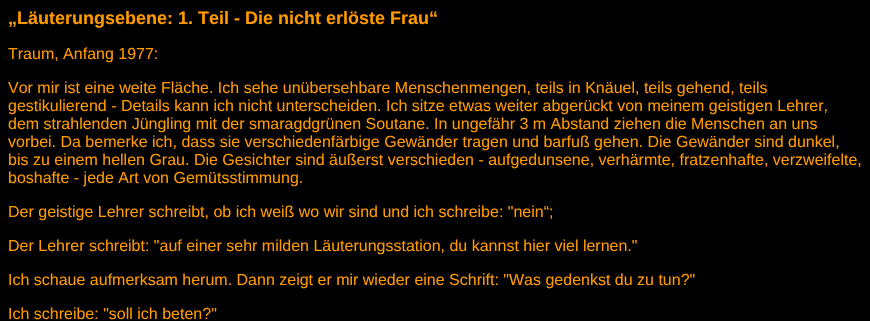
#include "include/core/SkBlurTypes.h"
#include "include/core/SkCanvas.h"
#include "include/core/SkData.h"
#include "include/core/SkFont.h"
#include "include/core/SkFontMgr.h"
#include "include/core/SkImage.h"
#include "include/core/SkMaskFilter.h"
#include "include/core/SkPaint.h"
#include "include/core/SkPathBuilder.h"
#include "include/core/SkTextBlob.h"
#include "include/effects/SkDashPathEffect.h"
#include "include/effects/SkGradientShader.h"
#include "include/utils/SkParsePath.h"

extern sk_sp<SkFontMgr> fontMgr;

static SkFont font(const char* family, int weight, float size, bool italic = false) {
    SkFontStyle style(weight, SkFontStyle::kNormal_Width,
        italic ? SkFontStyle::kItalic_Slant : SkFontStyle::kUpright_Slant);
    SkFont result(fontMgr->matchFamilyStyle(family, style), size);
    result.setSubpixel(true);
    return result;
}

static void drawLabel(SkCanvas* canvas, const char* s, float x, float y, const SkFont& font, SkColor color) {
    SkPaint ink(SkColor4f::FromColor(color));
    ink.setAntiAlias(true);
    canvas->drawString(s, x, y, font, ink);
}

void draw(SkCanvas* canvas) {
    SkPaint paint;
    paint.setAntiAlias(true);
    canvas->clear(0xFF000000);
    SkFont font1 = font("Liberation Sans", 700, 18);
    drawLabel(canvas, "„Läuterungsebene: 1. Teil - Die nicht erlöste Frau“", 8, 24, font1, 0xFFFF9900);
    SkFont font2 = font("Liberation Sans", 400, 16);
    drawLabel(canvas, "Traum, Anfang 1977:", 8, 59, font2, 0xFFFF9900);
    drawLabel(canvas, "Vor mir ist eine weite Fläche. Ich sehe unübersehbare Menschenmengen, teils in Knäuel, teils gehend, teils", 8, 93, font2, 0xFFFF9900);
    drawLabel(canvas, "gestikulierend - Details kann ich nicht unterscheiden. Ich sitze etwas weiter abgerückt von meinem geistigen Lehrer,", 8, 111, font2, 0xFFFF9900);
    drawLabel(canvas, "dem strahlenden Jüngling mit der smaragdgrünen Soutane. In ungefähr 3 m Abstand ziehen die Menschen an uns", 8, 129, font2, 0xFFFF9900);
    drawLabel(canvas, "vorbei. Da bemerke ich, dass sie verschiedenfärbige Gewänder tragen und barfuß gehen. Die Gewänder sind dunkel,", 8, 147, font2, 0xFFFF9900);
    drawLabel(canvas, "bis zu einem hellen Grau. Die Gesichter sind äußerst verschieden - aufgedunsene, verhärmte, fratzenhafte, verzweifelte,", 8, 165, font2, 0xFFFF9900);
    drawLabel(canvas, "boshafte - jede Art von Gemütsstimmung.", 8, 183, font2, 0xFFFF9900);
    drawLabel(canvas, "Der geistige Lehrer schreibt, ob ich weiß wo wir sind und ich schreibe: \"nein“;", 8, 217, font2, 0xFFFF9900);
    drawLabel(canvas, "Der Lehrer schreibt: \"auf einer sehr milden Läuterungsstation, du kannst hier viel lernen.\"", 8, 251, font2, 0xFFFF9900);
    drawLabel(canvas, "Ich schaue aufmerksam herum. Dann zeigt er mir wieder eine Schrift: \"Was gedenkst du zu tun?\"", 8, 285, font2, 0xFFFF9900);
    drawLabel(canvas, "Ich schreibe: \"soll ich beten?\"", 8, 319, font2, 0xFFFF9900);
}
